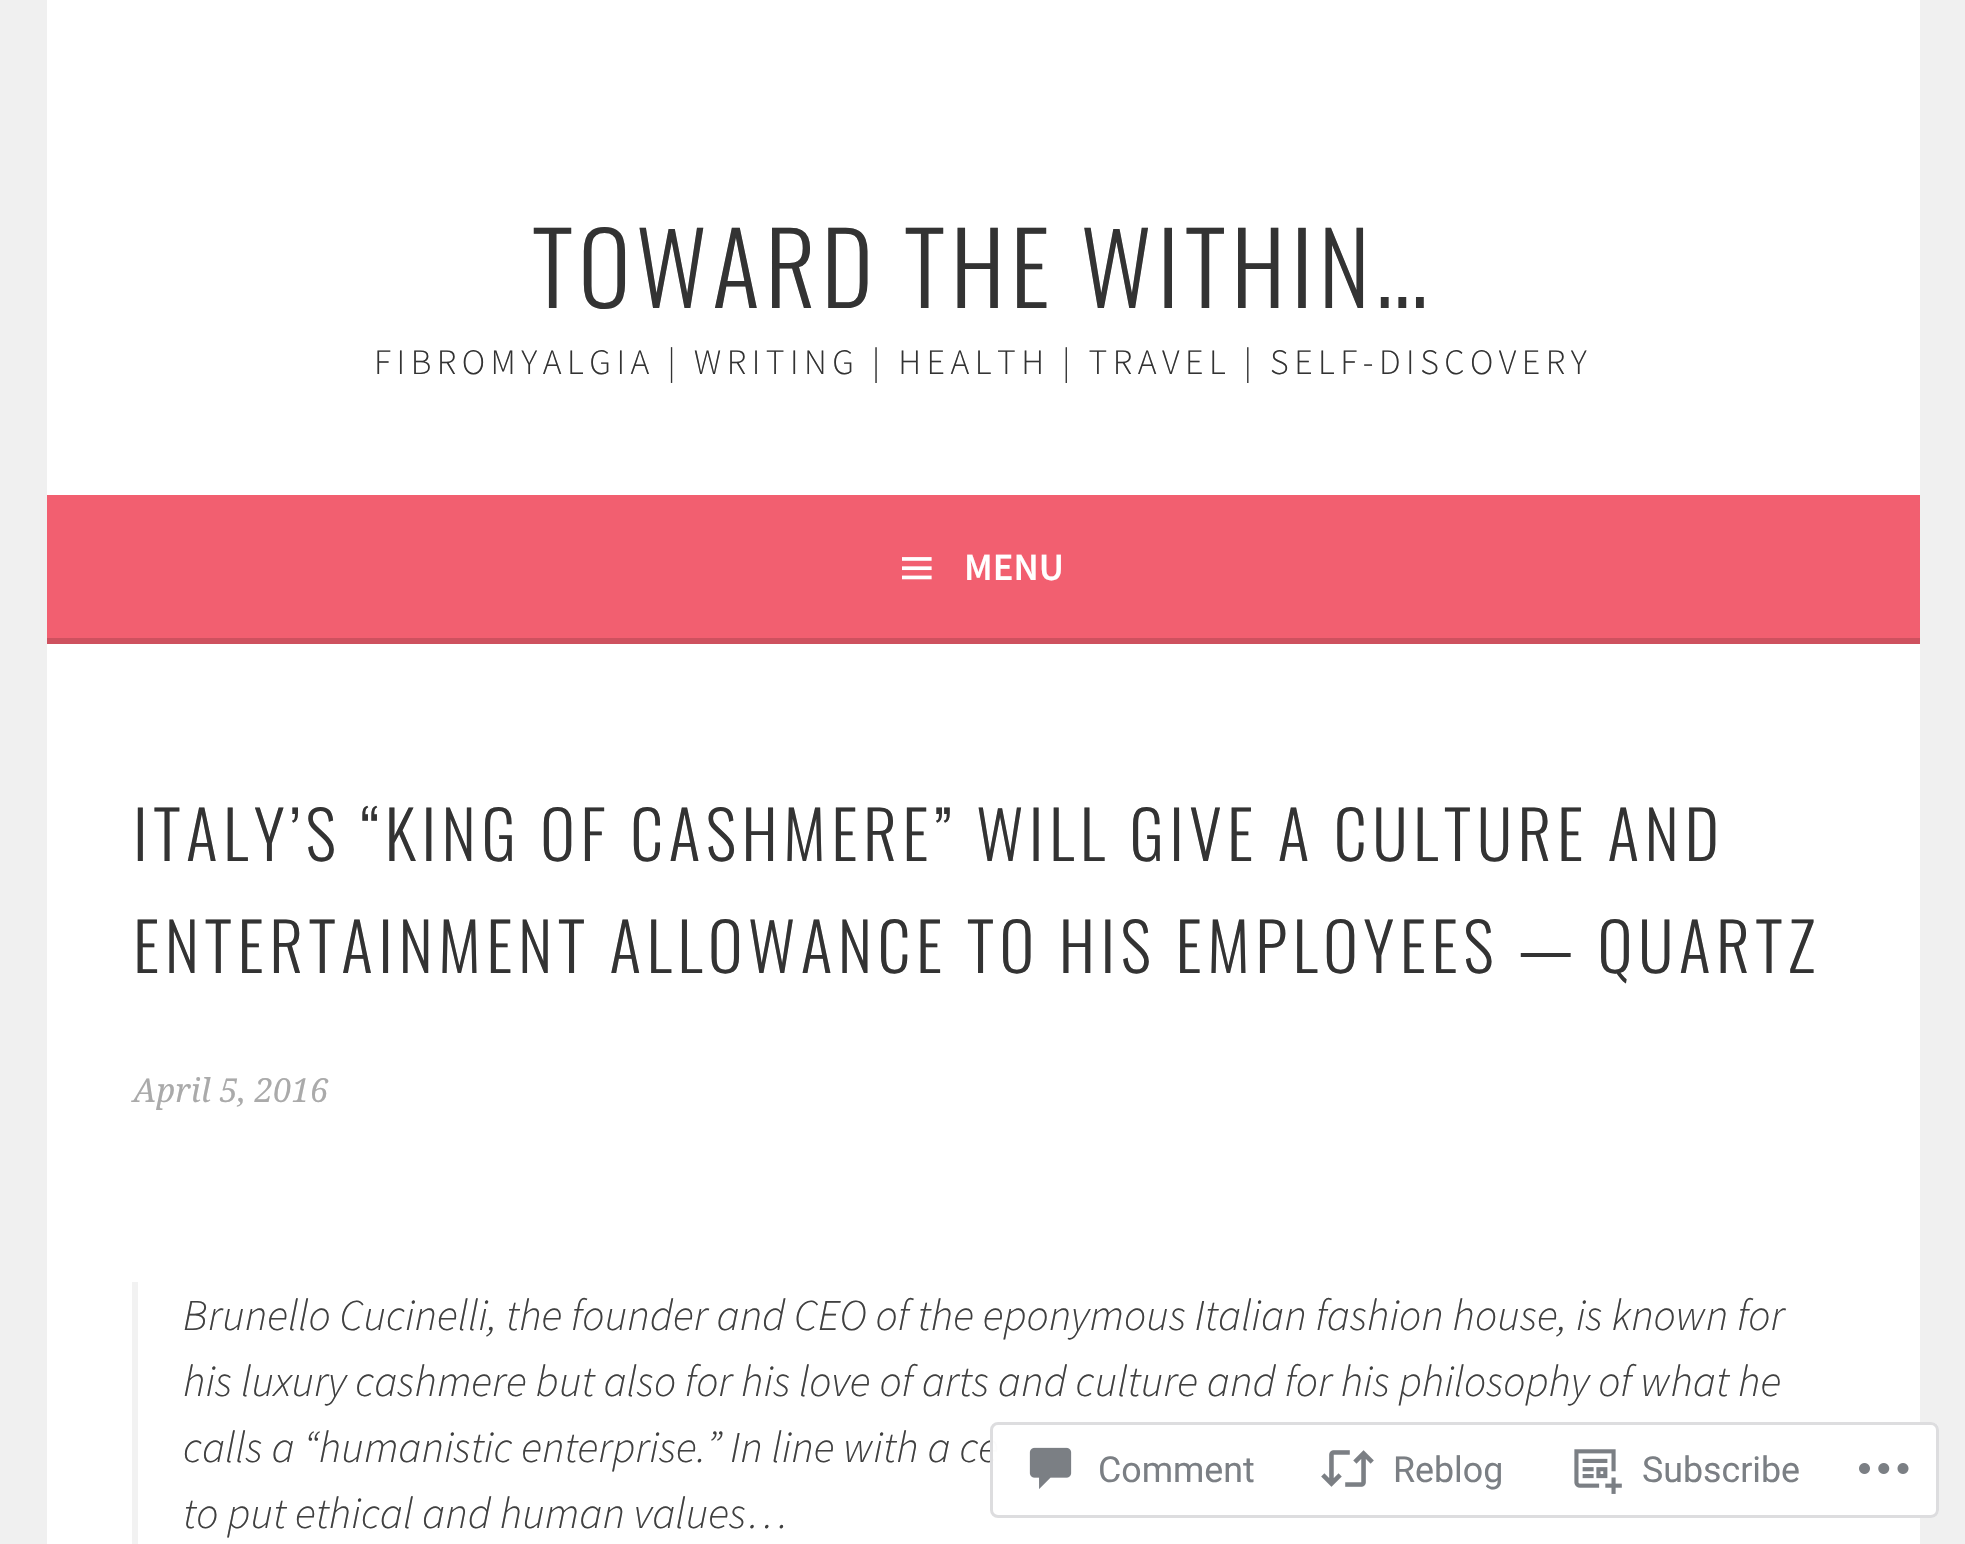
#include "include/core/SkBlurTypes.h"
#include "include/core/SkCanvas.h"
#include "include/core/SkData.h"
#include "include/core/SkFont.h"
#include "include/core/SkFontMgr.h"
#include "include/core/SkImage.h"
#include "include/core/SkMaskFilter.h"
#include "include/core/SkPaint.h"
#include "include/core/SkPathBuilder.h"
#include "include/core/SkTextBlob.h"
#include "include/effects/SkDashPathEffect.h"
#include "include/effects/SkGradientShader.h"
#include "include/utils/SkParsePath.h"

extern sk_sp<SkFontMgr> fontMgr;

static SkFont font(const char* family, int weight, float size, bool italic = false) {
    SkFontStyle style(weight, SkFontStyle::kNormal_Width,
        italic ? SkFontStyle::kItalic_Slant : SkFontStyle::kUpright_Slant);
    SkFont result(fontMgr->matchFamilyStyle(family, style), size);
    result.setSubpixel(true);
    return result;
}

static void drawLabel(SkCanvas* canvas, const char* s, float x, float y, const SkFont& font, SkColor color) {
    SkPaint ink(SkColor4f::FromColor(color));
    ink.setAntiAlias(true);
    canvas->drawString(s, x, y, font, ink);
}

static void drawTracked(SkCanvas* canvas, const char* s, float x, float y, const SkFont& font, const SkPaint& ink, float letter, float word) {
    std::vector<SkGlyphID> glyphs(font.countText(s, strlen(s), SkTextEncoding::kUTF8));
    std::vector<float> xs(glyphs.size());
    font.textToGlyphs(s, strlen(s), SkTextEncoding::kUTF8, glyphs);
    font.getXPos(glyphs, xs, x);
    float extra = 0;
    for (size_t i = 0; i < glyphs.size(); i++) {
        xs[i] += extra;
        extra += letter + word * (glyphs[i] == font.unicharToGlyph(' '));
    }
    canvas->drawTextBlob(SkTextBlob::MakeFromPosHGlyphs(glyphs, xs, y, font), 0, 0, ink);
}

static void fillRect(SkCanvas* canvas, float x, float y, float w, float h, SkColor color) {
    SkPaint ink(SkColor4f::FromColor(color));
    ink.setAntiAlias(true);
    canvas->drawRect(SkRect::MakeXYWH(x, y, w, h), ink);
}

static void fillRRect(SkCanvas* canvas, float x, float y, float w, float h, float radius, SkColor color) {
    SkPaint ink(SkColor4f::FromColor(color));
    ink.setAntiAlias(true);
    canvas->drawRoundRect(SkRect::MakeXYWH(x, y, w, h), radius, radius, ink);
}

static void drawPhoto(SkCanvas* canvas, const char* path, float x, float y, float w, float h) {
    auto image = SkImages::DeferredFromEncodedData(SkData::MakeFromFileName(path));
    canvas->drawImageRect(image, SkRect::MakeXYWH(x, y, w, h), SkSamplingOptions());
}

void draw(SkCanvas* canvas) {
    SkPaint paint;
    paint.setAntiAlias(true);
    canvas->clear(0xFFF0F0F0);
    fillRect(canvas, 47, 0, 1873, 495, 0xFFFFFFFF);
    SkFont font1 = font("Oswald", 300, 99);
    paint.setColor(0xFF333333);
    drawTracked(canvas, "TOWARD THE WITHIN…", 532, 308, font1, paint, 5.5f, 0);
    SkFont font2 = font("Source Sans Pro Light", 300, 35.75f);
    drawTracked(canvas, "FIBROMYALGIA | WRITING | HEALTH | TRAVEL | SELF-DISCOVERY", 374, 374, font2, paint, 5.5f, 0);
    fillRect(canvas, 47, 495, 1873, 143, 0xFFF25F70);
    fillRect(canvas, 47, 638, 1873, 6, 0xFFCE515F);
    drawPhoto(canvas, "assets/img1.png", 902, 557, 30, 23);
    SkFont font3 = font("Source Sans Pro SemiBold", 600, 38.5f);
    drawLabel(canvas, "MENU", 964, 580, font3, 0xFFFFFFFF);
    fillRect(canvas, 47, 644, 1873, 900, 0xFFFFFFFF);
    SkFont font4 = font("Oswald", 300, 66);
    drawTracked(canvas, "ITALY’S “KING OF CASHMERE” WILL GIVE A CULTURE AND", 133, 861, font4, paint, 5.5f, 0);
    drawTracked(canvas, "ENTERTAINMENT ALLOWANCE TO HIS EMPLOYEES — QUARTZ", 133, 973, font4, paint, 5.5f, 0);
    SkFont font5 = font("Droid Serif", 400, 33, true);
    drawLabel(canvas, "April 5, 2016", 133, 1102, font5, 0xFFAAAAAA);
    fillRect(canvas, 132, 1282, 6, 262, 0xFFF2F2F2);
    SkFont font6 = font("Source Sans Pro Light", 300, 44, true);
    drawLabel(canvas, "Brunello Cucinelli, the founder and CEO of the eponymous Italian fashion house, is known for", 183, 1330, font6, 0xFF404040);
    drawLabel(canvas, "his luxury cashmere but also for his love of arts and culture and for his philosophy of what he", 183, 1396, font6, 0xFF404040);
    drawLabel(canvas, "calls a “humanistic enterprise.” In line with a ce", 183, 1462, font6, 0xFF404040);
    drawLabel(canvas, "to put ethical and human values…", 183, 1528, font6, 0xFF404040);
    fillRRect(canvas, 990, 1422, 949, 96, 8, 0xFAFFFFFF);
    paint.setStroke(true);
    paint.setStrokeWidth(3);
    paint.setColor(0xFADCDCDE);
    canvas->drawRoundRect(SkRect::MakeXYWH(991.5f, 1423.5f, 946, 93), 6.5f, 6.5f, paint);
    drawPhoto(canvas, "assets/img2.png", 1029, 1447, 43, 42);
    SkFont font7 = font("Roboto", 400, 35.75f);
    drawLabel(canvas, "Comment", 1098, 1482, font7, 0xFF7B7F84);
    drawPhoto(canvas, "assets/img3.png", 1321, 1450, 53, 37);
    drawLabel(canvas, "Reblog", 1393, 1482, font7, 0xFF7B7F84);
    drawPhoto(canvas, "assets/img4.png", 1574, 1449, 48, 45);
    drawLabel(canvas, "Subscribe", 1642, 1482, font7, 0xFF7B7F84);
    drawPhoto(canvas, "assets/img5.png", 1859, 1463, 50, 11);
}
